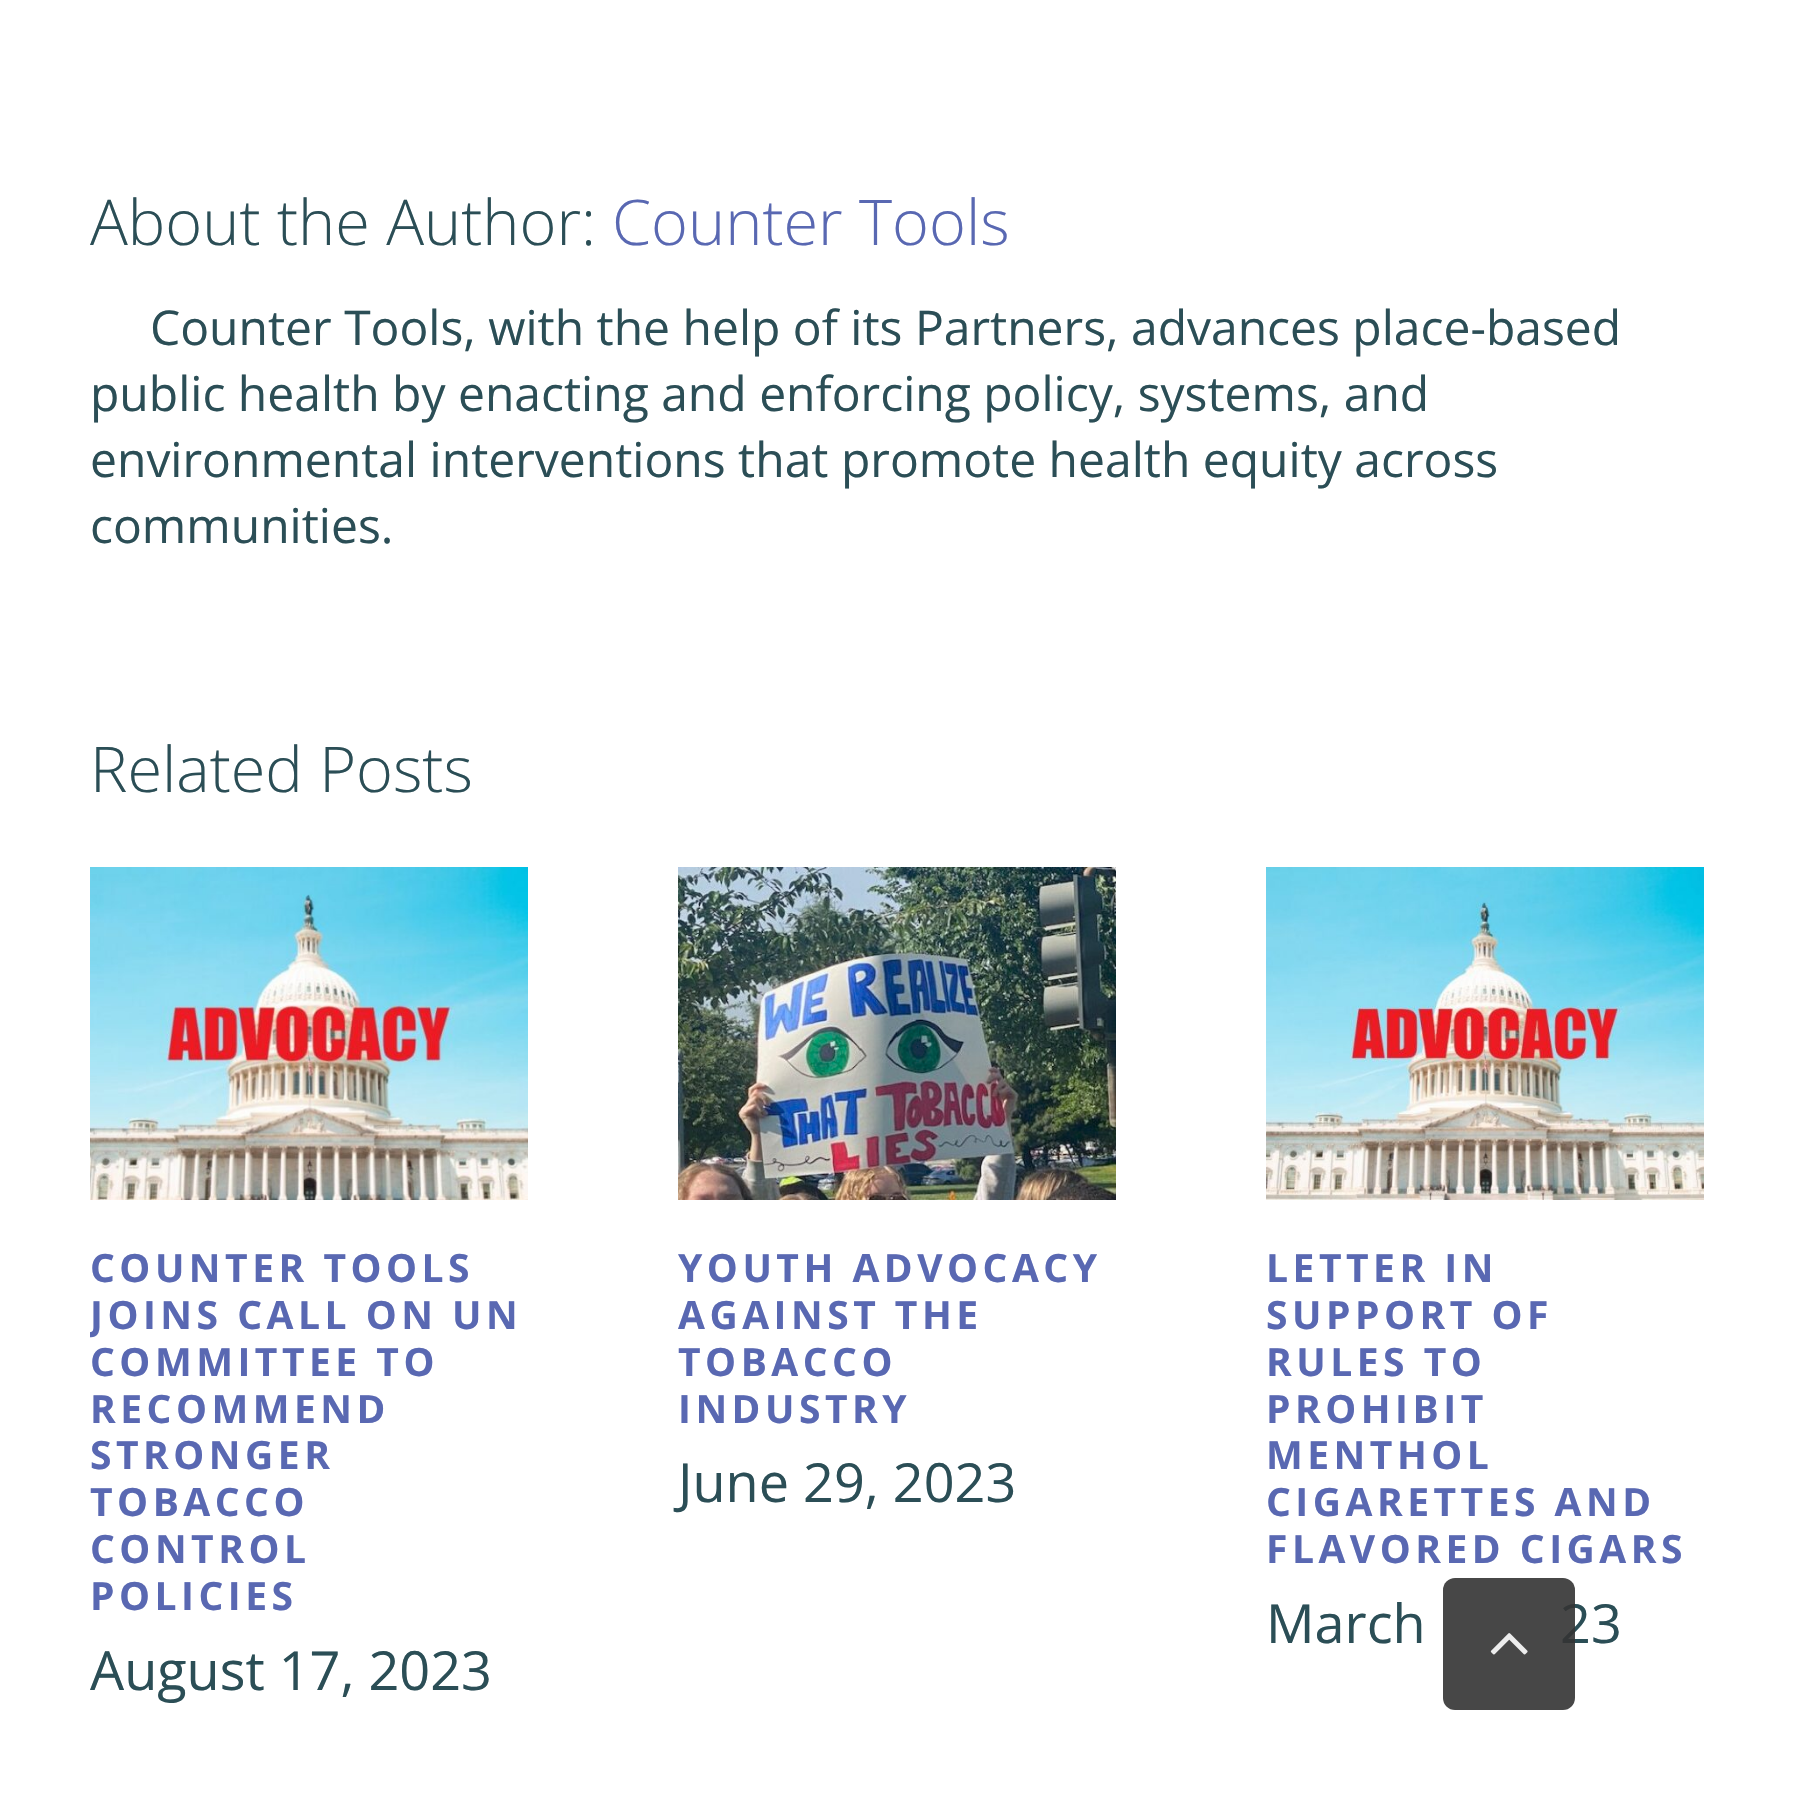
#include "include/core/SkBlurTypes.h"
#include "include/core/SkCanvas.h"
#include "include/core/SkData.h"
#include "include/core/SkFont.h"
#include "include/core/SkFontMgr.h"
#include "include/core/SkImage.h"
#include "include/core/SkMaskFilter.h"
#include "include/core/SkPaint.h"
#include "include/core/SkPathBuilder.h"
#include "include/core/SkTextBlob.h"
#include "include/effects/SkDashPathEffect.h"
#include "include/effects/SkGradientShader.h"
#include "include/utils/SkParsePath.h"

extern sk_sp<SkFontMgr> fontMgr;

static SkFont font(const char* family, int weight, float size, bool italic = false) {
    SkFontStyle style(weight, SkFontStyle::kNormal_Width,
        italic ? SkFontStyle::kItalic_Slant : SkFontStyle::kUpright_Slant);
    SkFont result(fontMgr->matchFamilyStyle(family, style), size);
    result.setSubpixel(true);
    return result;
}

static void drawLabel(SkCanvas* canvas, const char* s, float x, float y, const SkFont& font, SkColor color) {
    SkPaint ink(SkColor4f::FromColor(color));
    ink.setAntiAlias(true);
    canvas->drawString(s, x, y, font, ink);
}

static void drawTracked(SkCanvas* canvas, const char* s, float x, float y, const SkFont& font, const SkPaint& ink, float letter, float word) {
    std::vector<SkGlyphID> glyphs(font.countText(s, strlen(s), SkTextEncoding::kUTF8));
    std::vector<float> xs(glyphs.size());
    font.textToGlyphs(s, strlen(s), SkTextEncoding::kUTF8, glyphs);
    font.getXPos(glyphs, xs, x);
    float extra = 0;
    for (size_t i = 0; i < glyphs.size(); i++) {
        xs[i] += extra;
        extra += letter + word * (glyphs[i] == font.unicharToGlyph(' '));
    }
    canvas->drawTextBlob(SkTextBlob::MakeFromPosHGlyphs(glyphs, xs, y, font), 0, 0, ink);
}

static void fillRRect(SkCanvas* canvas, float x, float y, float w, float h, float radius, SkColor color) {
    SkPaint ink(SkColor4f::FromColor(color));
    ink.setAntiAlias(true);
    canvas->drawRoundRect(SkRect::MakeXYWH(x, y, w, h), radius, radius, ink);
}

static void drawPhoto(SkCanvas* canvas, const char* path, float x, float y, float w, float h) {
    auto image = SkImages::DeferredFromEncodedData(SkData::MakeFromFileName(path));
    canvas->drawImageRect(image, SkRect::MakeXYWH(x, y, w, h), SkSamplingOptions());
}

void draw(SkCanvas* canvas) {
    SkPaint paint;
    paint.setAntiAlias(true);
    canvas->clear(0xFFFFFFFF);
    SkFont font1 = font("Open Sans", 300, 63);
    drawLabel(canvas, "About the Author:", 90, 245, font1, 0xFF2B4E56);
    drawLabel(canvas, "Counter Tools", 612, 245, font1, 0xFF5968B2);
    SkFont font2 = font("Open Sans", 400, 48);
    drawLabel(canvas, "Counter Tools, with the help of its Partners, advances place-based", 150, 345, font2, 0xFF2B4E56);
    drawLabel(canvas, "public health by enacting and enforcing policy, systems, and", 90, 411, font2, 0xFF2B4E56);
    drawLabel(canvas, "environmental interventions that promote health equity across", 90, 477, font2, 0xFF2B4E56);
    drawLabel(canvas, "communities.", 90, 543, font2, 0xFF2B4E56);
    drawLabel(canvas, "Related Posts", 90, 792, font1, 0xFF2B4E56);
    drawPhoto(canvas, "assets/img1.png", 90, 867, 438, 333);
    SkFont font3 = font("Open Sans", 700, 39);
    paint.setColor(0xFF5968B2);
    drawTracked(canvas, "COUNTER TOOLS", 90, 1282, font3, paint, 4.5f, 0);
    canvas->save();
    canvas->clipRect(SkRect::MakeXYWH(90, 843, 1614, 891));
    drawTracked(canvas, "JOINS CALL ON UN", 90, 1329, font3, paint, 4.5f, 0);
    canvas->restore();
    drawTracked(canvas, "COMMITTEE TO", 90, 1376, font3, paint, 4.5f, 0);
    drawTracked(canvas, "RECOMMEND", 90, 1423, font3, paint, 4.5f, 0);
    drawTracked(canvas, "STRONGER", 90, 1469, font3, paint, 4.5f, 0);
    drawTracked(canvas, "TOBACCO", 90, 1516, font3, paint, 4.5f, 0);
    drawTracked(canvas, "CONTROL", 90, 1563, font3, paint, 4.5f, 0);
    drawTracked(canvas, "POLICIES", 90, 1610, font3, paint, 4.5f, 0);
    SkFont font4 = font("Open Sans", 400, 54);
    drawLabel(canvas, "August 17, 2023", 90, 1690, font4, 0xFF2B4E56);
    drawPhoto(canvas, "assets/img2.png", 678, 867, 438, 333);
    drawTracked(canvas, "YOUTH ADVOCACY", 678, 1282, font3, paint, 4.5f, 0);
    drawTracked(canvas, "AGAINST THE", 678, 1329, font3, paint, 4.5f, 0);
    drawTracked(canvas, "TOBACCO", 678, 1376, font3, paint, 4.5f, 0);
    drawTracked(canvas, "INDUSTRY", 678, 1423, font3, paint, 4.5f, 0);
    drawLabel(canvas, "June 29, 2023", 678, 1502, font4, 0xFF2B4E56);
    drawPhoto(canvas, "assets/img3.png", 1266, 867, 438, 333);
    drawTracked(canvas, "LETTER IN", 1266, 1282, font3, paint, 4.5f, 0);
    drawTracked(canvas, "SUPPORT OF", 1266, 1329, font3, paint, 4.5f, 0);
    drawTracked(canvas, "RULES TO", 1266, 1376, font3, paint, 4.5f, 0);
    drawTracked(canvas, "PROHIBIT", 1266, 1423, font3, paint, 4.5f, 0);
    drawTracked(canvas, "MENTHOL", 1266, 1469, font3, paint, 4.5f, 0);
    drawTracked(canvas, "CIGARETTES AND", 1266, 1516, font3, paint, 4.5f, 0);
    drawTracked(canvas, "FLAVORED CIGARS", 1266, 1563, font3, paint, 4.5f, 0);
    drawLabel(canvas, "March", 1266, 1643, font4, 0xFF2B4E56);
    drawLabel(canvas, "23", 1560, 1643, font4, 0xFF2B4E56);
    fillRRect(canvas, 1443, 1578, 132, 132, 12, 0xE6333333);
    drawPhoto(canvas, "assets/img4.png", 1490, 1633, 38, 22);
}
